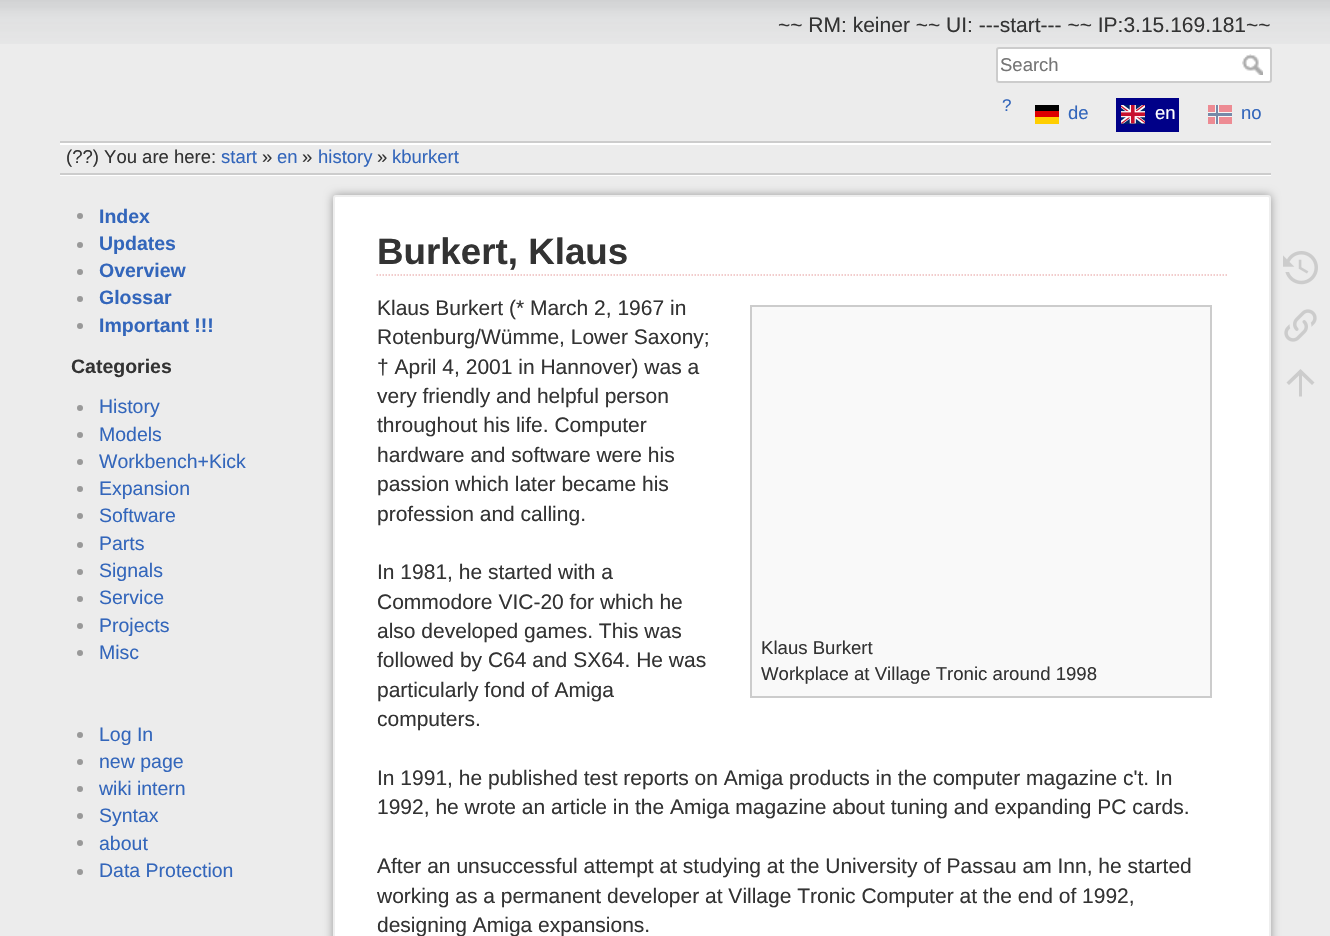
#include "include/core/SkBlurTypes.h"
#include "include/core/SkCanvas.h"
#include "include/core/SkData.h"
#include "include/core/SkFont.h"
#include "include/core/SkFontMgr.h"
#include "include/core/SkImage.h"
#include "include/core/SkMaskFilter.h"
#include "include/core/SkPaint.h"
#include "include/core/SkPathBuilder.h"
#include "include/core/SkTextBlob.h"
#include "include/effects/SkDashPathEffect.h"
#include "include/effects/SkGradientShader.h"
#include "include/utils/SkParsePath.h"

extern sk_sp<SkFontMgr> fontMgr;

static SkFont font(const char* family, int weight, float size, bool italic = false) {
    SkFontStyle style(weight, SkFontStyle::kNormal_Width,
        italic ? SkFontStyle::kItalic_Slant : SkFontStyle::kUpright_Slant);
    SkFont result(fontMgr->matchFamilyStyle(family, style), size);
    result.setSubpixel(true);
    return result;
}

static void drawLabel(SkCanvas* canvas, const char* s, float x, float y, const SkFont& font, SkColor color) {
    SkPaint ink(SkColor4f::FromColor(color));
    ink.setAntiAlias(true);
    canvas->drawString(s, x, y, font, ink);
}

static void fillRect(SkCanvas* canvas, float x, float y, float w, float h, SkColor color) {
    SkPaint ink(SkColor4f::FromColor(color));
    ink.setAntiAlias(true);
    canvas->drawRect(SkRect::MakeXYWH(x, y, w, h), ink);
}

static void drawPhoto(SkCanvas* canvas, const char* path, float x, float y, float w, float h) {
    auto image = SkImages::DeferredFromEncodedData(SkData::MakeFromFileName(path));
    canvas->drawImageRect(image, SkRect::MakeXYWH(x, y, w, h), SkSamplingOptions());
}

static SkPath parsePath(const char* data, bool evenOdd = false) {
    SkPath result = *SkParsePath::FromSVGString(data);
    if (evenOdd) result.setFillType(SkPathFillType::kEvenOdd);
    return result;
}

void draw(SkCanvas* canvas) {
    SkPaint paint;
    paint.setAntiAlias(true);
    canvas->clear(0xFFECECEC);
    drawPhoto(canvas, "assets/img1.png", 0, 0, 1330, 44);
    SkFont font1 = font("Liberation Sans", 400, 21);
    drawLabel(canvas, "~~ RM: keiner ~~ UI: ---start--- ~~ IP:3.15.169.181~~", 778, 32, font1, 0xFF333333);
    paint.setColor(0xFFFFFFFF);
    canvas->drawRoundRect(SkRect::MakeXYWH(997, 48, 274, 34), 2, 2, paint);
    paint.setStroke(true);
    paint.setStrokeWidth(2);
    paint.setColor(0xFFCCCCCC);
    canvas->drawRoundRect(SkRect::MakeXYWH(997, 48, 274, 34), 2, 2, paint);
    SkFont font2 = font("Liberation Sans", 400, 18.5f);
    drawLabel(canvas, "Search", 1000, 71, font2, 0xFF757575);
    drawPhoto(canvas, "assets/img2.png", 1242, 54, 21, 21);
    SkFont font3 = font("Liberation Sans", 400, 17);
    drawLabel(canvas, "?", 1002, 111, font3, 0xFF3366BB);
    fillRect(canvas, 1035, 105, 24, 6, 0xFF000000);
    drawLabel(canvas, "de", 1068, 119, font2, 0xFF3366BB);
    fillRect(canvas, 1035, 111, 24, 6, 0xFFDD0000);
    fillRect(canvas, 1035, 117, 24, 7, 0xFFFFCE00);
    fillRect(canvas, 1116, 98, 63, 34, 0xFF000088);
    drawPhoto(canvas, "assets/img3.png", 1121, 105, 24, 19);
    drawLabel(canvas, "en", 1155, 119, font2, 0xFFFFFFFF);
    fillRect(canvas, 1208, 105, 24, 19, 0xFFED8B93);
    fillRect(canvas, 1215, 105, 4, 19, 0xFFF6F6F6);
    fillRect(canvas, 1208, 112, 24, 5, 0xFFF6F6F6);
    fillRect(canvas, 1216, 105, 2, 19, 0xFF7689A8);
    drawLabel(canvas, "no", 1241, 119, font2, 0xFF3366BB);
    fillRect(canvas, 1208, 113, 24, 3, 0xFF7689A8);
    fillRect(canvas, 60, 141, 1211, 2, 0xFFCCCCCC);
    fillRect(canvas, 60, 175, 1211, 1, 0xFFFFFFFF);
    fillRect(canvas, 60, 143, 1211, 2, 0xFFFFFFFF);
    fillRect(canvas, 60, 173, 1211, 2, 0xFFCCCCCC);
    drawLabel(canvas, "(?\077) You are here:", 66, 163, font2, 0xFF333333);
    drawLabel(canvas, "start", 221, 163, font2, 0xFF3366BB);
    drawLabel(canvas, "»", 262, 163, font2, 0xFF333333);
    drawLabel(canvas, "en", 277, 163, font2, 0xFF3366BB);
    drawLabel(canvas, "»", 302, 163, font2, 0xFF333333);
    drawLabel(canvas, "history", 318, 163, font2, 0xFF3366BB);
    drawLabel(canvas, "»", 377, 163, font2, 0xFF333333);
    drawLabel(canvas, "kburkert", 392, 163, font2, 0xFF3366BB);
    paint.setStroke(false);
    paint.setColor(0xFF999999);
    canvas->drawCircle(80, 216, 3, paint);
    SkFont font4 = font("Liberation Sans", 700, 19.5f);
    drawLabel(canvas, "Index", 99, 223, font4, 0xFF3366BB);
    canvas->drawCircle(80, 245, 3, paint);
    drawLabel(canvas, "Updates", 99, 250, font4, 0xFF3366BB);
    canvas->drawCircle(80, 272, 3, paint);
    drawLabel(canvas, "Overview", 99, 277, font4, 0xFF3366BB);
    canvas->drawCircle(80, 299, 3, paint);
    drawLabel(canvas, "Glossar", 99, 304, font4, 0xFF3366BB);
    canvas->drawCircle(80, 326, 3, paint);
    drawLabel(canvas, "Important !!!", 99, 332, font4, 0xFF3366BB);
    drawLabel(canvas, "Categories", 71, 373, font4, 0xFF333333);
    canvas->drawCircle(80, 408, 3, paint);
    SkFont font5 = font("Liberation Sans", 400, 19.5f);
    drawLabel(canvas, "History", 99, 413, font5, 0xFF3366BB);
    canvas->drawCircle(80, 435, 3, paint);
    drawLabel(canvas, "Models", 99, 441, font5, 0xFF3366BB);
    canvas->drawCircle(80, 462, 3, paint);
    drawLabel(canvas, "Workbench+Kick", 99, 468, font5, 0xFF3366BB);
    canvas->drawCircle(80, 489, 3, paint);
    drawLabel(canvas, "Expansion", 99, 495, font5, 0xFF3366BB);
    canvas->drawCircle(80, 516, 3, paint);
    drawLabel(canvas, "Software", 99, 522, font5, 0xFF3366BB);
    canvas->drawCircle(80, 545, 3, paint);
    drawLabel(canvas, "Parts", 99, 550, font5, 0xFF3366BB);
    canvas->drawCircle(80, 572, 3, paint);
    drawLabel(canvas, "Signals", 99, 577, font5, 0xFF3366BB);
    canvas->drawCircle(80, 599, 3, paint);
    drawLabel(canvas, "Service", 99, 604, font5, 0xFF3366BB);
    canvas->drawCircle(80, 626, 3, paint);
    drawLabel(canvas, "Projects", 99, 632, font5, 0xFF3366BB);
    canvas->drawCircle(80, 653, 3, paint);
    drawLabel(canvas, "Misc", 99, 659, font5, 0xFF3366BB);
    canvas->drawCircle(80, 735, 3, paint);
    drawLabel(canvas, "Log In", 99, 741, font5, 0xFF3366BB);
    canvas->drawCircle(80, 762, 3, paint);
    drawLabel(canvas, "new page", 99, 768, font5, 0xFF3366BB);
    canvas->drawCircle(80, 789, 3, paint);
    drawLabel(canvas, "wiki intern", 99, 795, font5, 0xFF3366BB);
    canvas->drawCircle(80, 816, 3, paint);
    drawLabel(canvas, "Syntax", 99, 822, font5, 0xFF3366BB);
    canvas->drawCircle(80, 843, 3, paint);
    drawLabel(canvas, "about", 99, 850, font5, 0xFF3366BB);
    canvas->drawCircle(80, 872, 3, paint);
    drawLabel(canvas, "Data Protection", 99, 877, font5, 0xFF3366BB);
    paint.setMaskFilter(SkMaskFilter::MakeBlur(kNormal_SkBlurStyle, 5));
    canvas->drawRoundRect(SkRect::MakeXYWH(333, 195, 938, 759), 3, 3, paint);
    paint.setMaskFilter(nullptr);
    paint.setColor(0xFFFFFFFF);
    canvas->drawRoundRect(SkRect::MakeXYWH(334, 196, 936, 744), 2, 2, paint);
    paint.setStroke(true);
    paint.setColor(0xFFEEEEEE);
    canvas->drawRoundRect(SkRect::MakeXYWH(334, 196, 936, 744), 2, 2, paint);
    paint.setStrokeWidth(1.5f);
    paint.setColor(0xFFEEBBBB);
    paint.setPathEffect(SkDashPathEffect::Make({{1.5f, 1.5f}}, 0));
    canvas->drawPath(parsePath("M376.5 275H1227"), paint);
    paint.setPathEffect(nullptr);
    SkFont font6 = font("Liberation Sans", 700, 36.75f);
    drawLabel(canvas, "Burkert, Klaus", 377, 264, font6, 0xFF333333);
    drawLabel(canvas, "Klaus Burkert (* March 2, 1967 in", 377, 315, font1, 0xFF333333);
    drawLabel(canvas, "Rotenburg/Wümme, Lower Saxony;", 377, 344, font1, 0xFF333333);
    drawLabel(canvas, "† April 4, 2001 in Hannover) was a", 377, 374, font1, 0xFF333333);
    drawLabel(canvas, "very friendly and helpful person", 377, 403, font1, 0xFF333333);
    drawLabel(canvas, "throughout his life. Computer", 377, 432, font1, 0xFF333333);
    drawLabel(canvas, "hardware and software were his", 377, 462, font1, 0xFF333333);
    drawLabel(canvas, "passion which later became his", 377, 491, font1, 0xFF333333);
    drawLabel(canvas, "profession and calling.", 377, 521, font1, 0xFF333333);
    drawLabel(canvas, "In 1981, he started with a", 377, 579, font1, 0xFF333333);
    drawLabel(canvas, "Commodore VIC-20 for which he", 377, 609, font1, 0xFF333333);
    drawLabel(canvas, "also developed games. This was", 377, 638, font1, 0xFF333333);
    drawLabel(canvas, "followed by C64 and SX64. He was", 377, 667, font1, 0xFF333333);
    drawLabel(canvas, "particularly fond of Amiga", 377, 697, font1, 0xFF333333);
    drawLabel(canvas, "computers.", 377, 726, font1, 0xFF333333);
    paint.setStroke(false);
    paint.setColor(0xFFF9F9F9);
    canvas->drawRect(SkRect::MakeXYWH(751, 306, 460, 391), paint);
    paint.setStroke(true);
    paint.setStrokeWidth(2);
    paint.setColor(0xFFCCCCCC);
    canvas->drawRect(SkRect::MakeXYWH(751, 306, 460, 391), paint);
    SkFont font7 = font("Liberation Sans", 400, 18.6f);
    drawLabel(canvas, "Klaus Burkert", 761, 654, font7, 0xFF333333);
    drawLabel(canvas, "Workplace at Village Tronic around 1998", 761, 680, font7, 0xFF333333);
    drawLabel(canvas, "In 1991, he published test reports on Amiga products in the computer magazine c't. In", 377, 785, font1, 0xFF333333);
    drawLabel(canvas, "1992, he wrote an article in the Amiga magazine about tuning and expanding PC cards.", 377, 814, font1, 0xFF333333);
    drawLabel(canvas, "After an unsuccessful attempt at studying at the University of Passau am Inn, he started", 377, 873, font1, 0xFF333333);
    drawLabel(canvas, "working as a permanent developer at Village Tronic Computer at the end of 1992,", 377, 903, font1, 0xFF333333);
    drawLabel(canvas, "designing Amiga expansions.", 377, 932, font1, 0xFF333333);
    drawPhoto(canvas, "assets/img4.png", 1283, 251, 35, 34);
    drawPhoto(canvas, "assets/img5.png", 1284, 309, 33, 33);
    paint.setStroke(false);
    canvas->drawPath(parsePath("M1302 396.5H1299V375.5L1289 385L1286.5 382.5L1300.5 369L1314.5 382.5L1312 385L1302 375.5Z"), paint);
}
